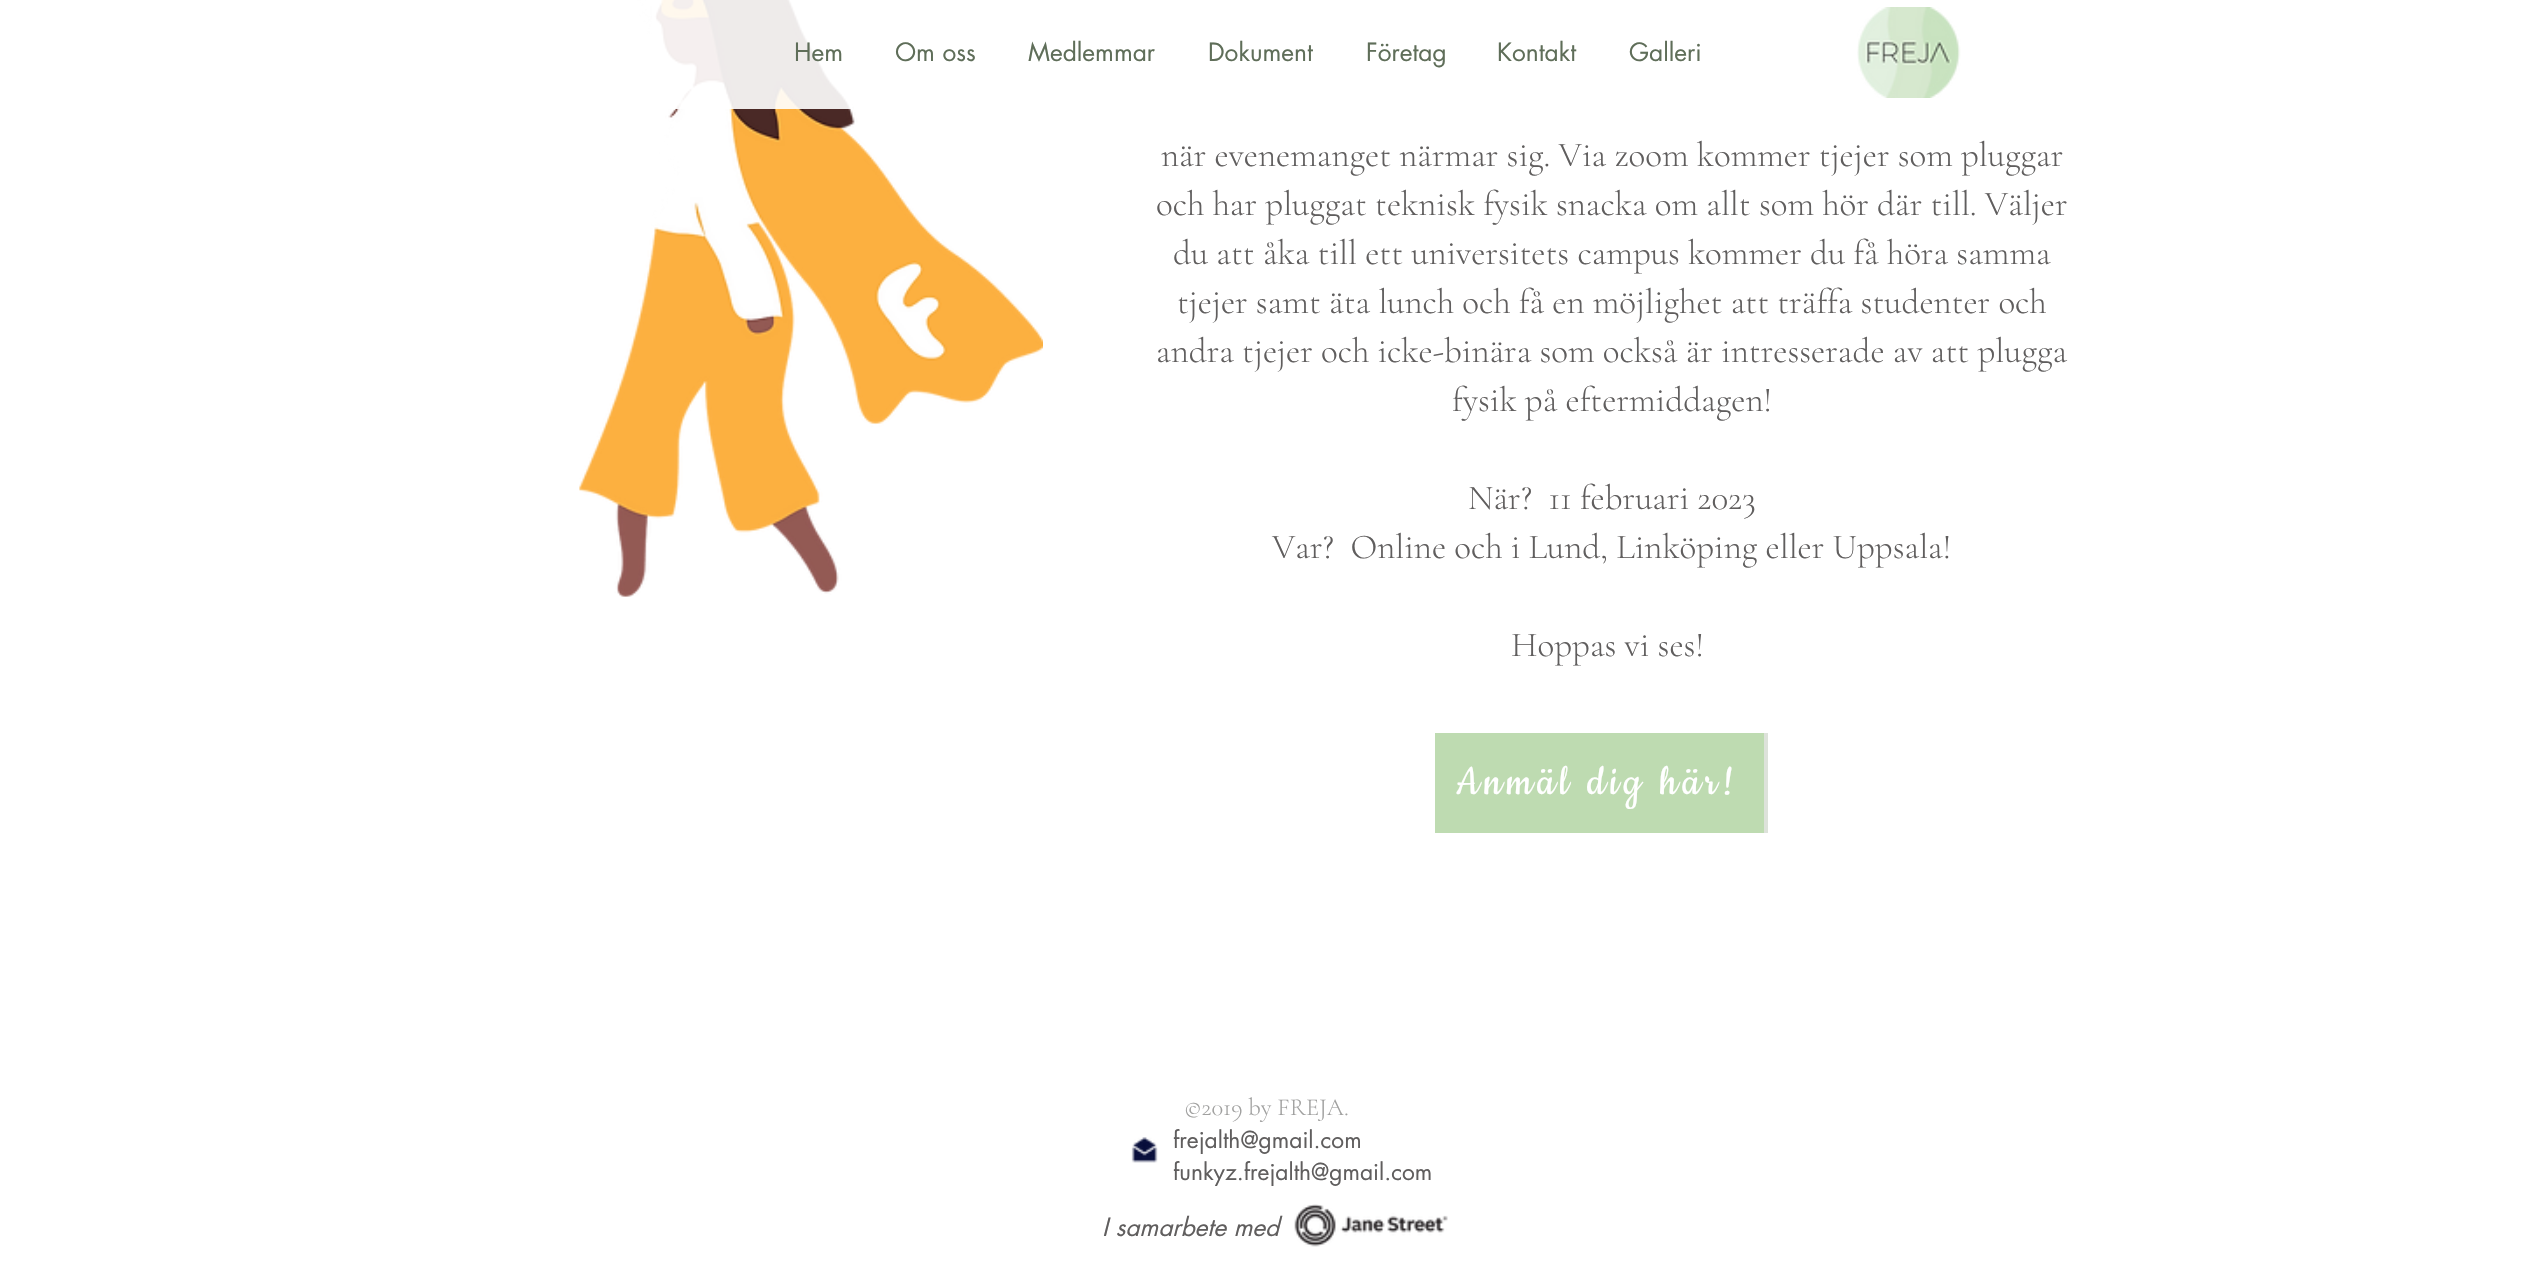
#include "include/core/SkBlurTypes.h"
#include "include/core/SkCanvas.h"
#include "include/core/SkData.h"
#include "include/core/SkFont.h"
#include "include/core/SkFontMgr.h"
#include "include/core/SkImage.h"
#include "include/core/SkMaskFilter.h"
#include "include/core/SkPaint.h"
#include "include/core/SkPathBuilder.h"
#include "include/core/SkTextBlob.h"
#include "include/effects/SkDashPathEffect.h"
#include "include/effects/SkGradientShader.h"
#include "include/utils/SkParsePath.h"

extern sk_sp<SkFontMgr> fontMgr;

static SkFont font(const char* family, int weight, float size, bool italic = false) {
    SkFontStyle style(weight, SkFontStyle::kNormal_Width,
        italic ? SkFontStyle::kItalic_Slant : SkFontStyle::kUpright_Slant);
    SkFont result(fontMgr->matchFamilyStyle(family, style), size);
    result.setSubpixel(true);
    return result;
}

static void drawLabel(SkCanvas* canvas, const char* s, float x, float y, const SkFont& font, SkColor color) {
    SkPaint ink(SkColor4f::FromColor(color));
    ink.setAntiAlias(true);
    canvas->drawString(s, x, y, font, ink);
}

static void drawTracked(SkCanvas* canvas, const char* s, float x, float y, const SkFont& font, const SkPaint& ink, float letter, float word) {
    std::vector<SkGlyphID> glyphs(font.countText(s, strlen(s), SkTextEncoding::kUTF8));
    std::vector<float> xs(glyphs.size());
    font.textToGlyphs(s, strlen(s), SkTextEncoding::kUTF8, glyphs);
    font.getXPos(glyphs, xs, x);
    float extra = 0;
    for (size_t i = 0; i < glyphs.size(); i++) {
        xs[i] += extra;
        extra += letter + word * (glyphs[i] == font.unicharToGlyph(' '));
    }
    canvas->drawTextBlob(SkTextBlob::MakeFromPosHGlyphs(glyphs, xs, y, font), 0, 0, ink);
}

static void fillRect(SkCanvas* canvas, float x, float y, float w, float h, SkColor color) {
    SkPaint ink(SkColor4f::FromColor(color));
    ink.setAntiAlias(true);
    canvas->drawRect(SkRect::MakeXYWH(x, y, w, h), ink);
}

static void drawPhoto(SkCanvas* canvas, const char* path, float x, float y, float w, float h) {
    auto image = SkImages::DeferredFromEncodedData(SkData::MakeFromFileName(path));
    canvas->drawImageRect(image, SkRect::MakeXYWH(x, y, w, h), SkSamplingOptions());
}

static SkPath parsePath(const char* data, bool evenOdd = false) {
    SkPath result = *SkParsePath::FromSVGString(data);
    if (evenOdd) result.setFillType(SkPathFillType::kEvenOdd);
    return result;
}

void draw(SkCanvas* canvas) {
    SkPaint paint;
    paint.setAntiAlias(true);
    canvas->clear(0xFFFFFFFF);
    drawPhoto(canvas, "assets/img2.png", 579, 0, 464, 597);
    fillRect(canvas, 652, 0, 200, 109, 0xE6FFFFFF);
    SkFont font1 = font("futura", 400, 24.5f);
    drawLabel(canvas, "Hem", 794, 61, font1, 0xFF5F6E59);
    drawLabel(canvas, "Om oss", 895, 61, font1, 0xFF5F6E59);
    drawLabel(canvas, "Medlemmar", 1028, 61, font1, 0xFF5F6E59);
    drawLabel(canvas, "Dokument", 1208, 61, font1, 0xFF5F6E59);
    drawLabel(canvas, "Företag", 1366, 61, font1, 0xFF5F6E59);
    drawLabel(canvas, "Kontakt", 1497, 61, font1, 0xFF5F6E59);
    drawLabel(canvas, "Galleri", 1629, 61, font1, 0xFF5F6E59);
    drawPhoto(canvas, "assets/img1.png", 1857, 7, 104, 91);
    SkFont font2 = font("Cormorant Garamond", 300, 35);
    drawLabel(canvas, "när evenemanget närmar sig. Via zoom kommer tjejer som pluggar", 1161, 166, font2, 0xFF605E5E);
    drawLabel(canvas, "och har pluggat teknisk fysik snacka om allt som hör där till. Väljer", 1156, 215, font2, 0xFF605E5E);
    drawLabel(canvas, "du att åka till ett universitets campus kommer du få höra samma", 1173, 264, font2, 0xFF605E5E);
    drawLabel(canvas, "tjejer samt äta lunch och få en möjlighet att träffa studenter och", 1177, 313, font2, 0xFF605E5E);
    drawLabel(canvas, "andra tjejer och icke-binära som också är intresserade av att plugga", 1156, 362, font2, 0xFF605E5E);
    drawLabel(canvas, "fysik på eftermiddagen!", 1452, 411, font2, 0xFF605E5E);
    drawLabel(canvas, "När?  11 februari 2023", 1468, 509, font2, 0xFF605E5E);
    drawLabel(canvas, "Var?  Online och i Lund, Linköping eller Uppsala!", 1272, 558, font2, 0xFF605E5E);
    drawLabel(canvas, "Hoppas vi ses!", 1511, 656, font2, 0xFF605E5E);
    paint.setColor(0xFFDDE2DA);
    canvas->drawPath(parsePath("M1439 733H1764V833H1768V733Z"), paint);
    fillRect(canvas, 1435, 733, 329, 100, 0xFFBEDBB1);
    SkFont font3 = font("Cookie", 400, 47.25f);
    paint.setColor(0xFFFFFFFF);
    drawTracked(canvas, "Anmäl dig här!", 1456, 794, font3, paint, 4.75f, 0);
    SkFont font4 = font("Cormorant Garamond", 300, 24.5f);
    drawLabel(canvas, "©2019 by FREJA.", 1184, 1115, font4, 0xFFA0A09F);
    drawPhoto(canvas, "assets/img3.png", 1131, 1137, 27, 26);
    SkFont font5 = font("futura", 400, 22.75f);
    drawLabel(canvas, "frejalth@gmail.com", 1173, 1148, font5, 0xFF605E5E);
    drawLabel(canvas, "funkyz.frejalth@gmail.com", 1173, 1180, font5, 0xFF605E5E);
    SkFont font6 = font("futura", 400, 24.5f, true);
    drawLabel(canvas, "I samarbete med", 1102, 1236, font6, 0xFF605E5E);
    drawPhoto(canvas, "assets/img4.png", 1294, 1204, 154, 43);
}
